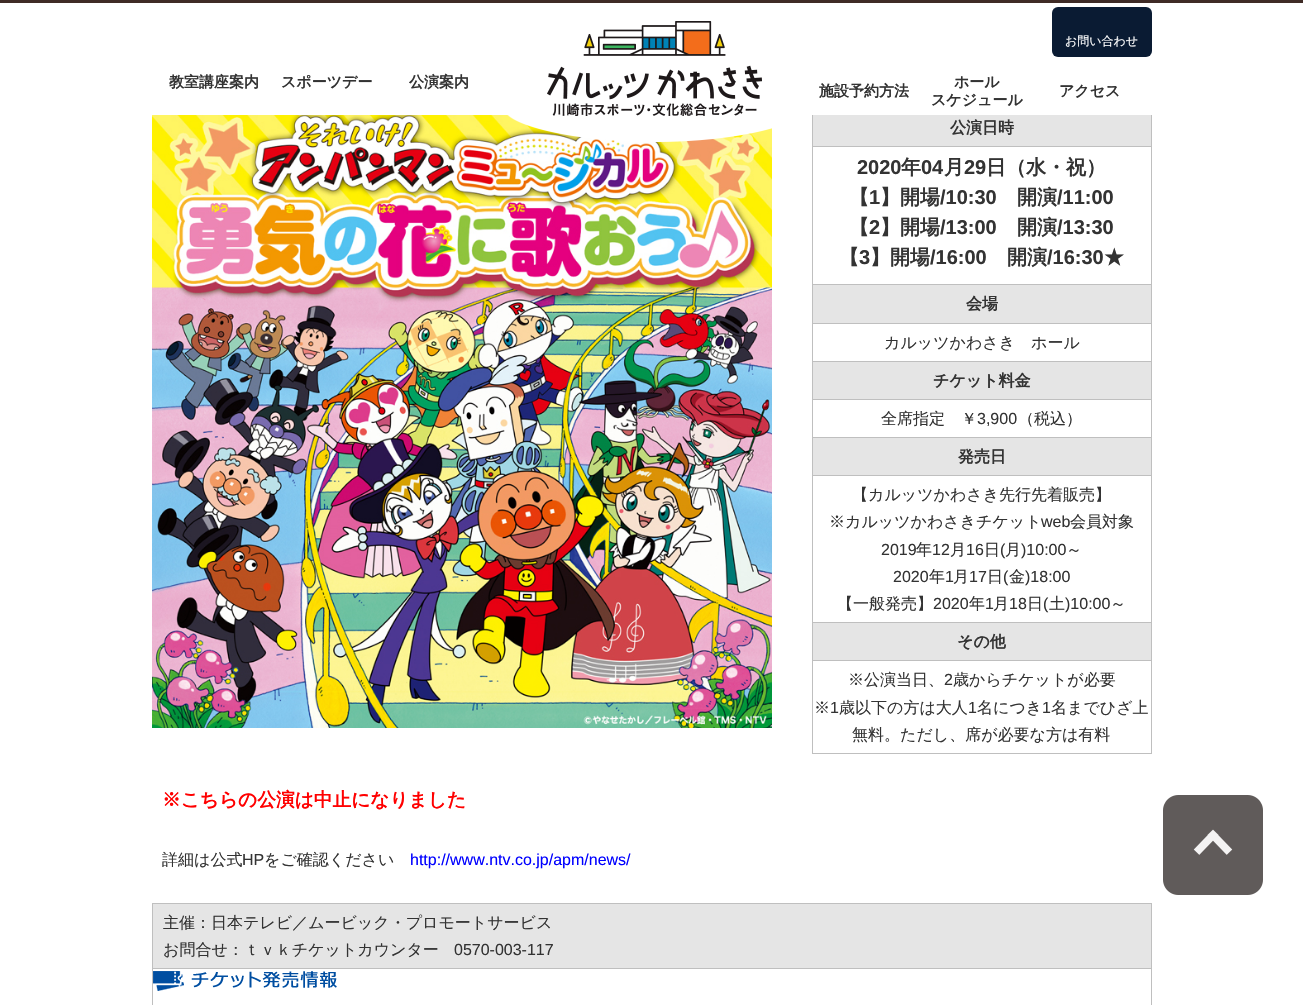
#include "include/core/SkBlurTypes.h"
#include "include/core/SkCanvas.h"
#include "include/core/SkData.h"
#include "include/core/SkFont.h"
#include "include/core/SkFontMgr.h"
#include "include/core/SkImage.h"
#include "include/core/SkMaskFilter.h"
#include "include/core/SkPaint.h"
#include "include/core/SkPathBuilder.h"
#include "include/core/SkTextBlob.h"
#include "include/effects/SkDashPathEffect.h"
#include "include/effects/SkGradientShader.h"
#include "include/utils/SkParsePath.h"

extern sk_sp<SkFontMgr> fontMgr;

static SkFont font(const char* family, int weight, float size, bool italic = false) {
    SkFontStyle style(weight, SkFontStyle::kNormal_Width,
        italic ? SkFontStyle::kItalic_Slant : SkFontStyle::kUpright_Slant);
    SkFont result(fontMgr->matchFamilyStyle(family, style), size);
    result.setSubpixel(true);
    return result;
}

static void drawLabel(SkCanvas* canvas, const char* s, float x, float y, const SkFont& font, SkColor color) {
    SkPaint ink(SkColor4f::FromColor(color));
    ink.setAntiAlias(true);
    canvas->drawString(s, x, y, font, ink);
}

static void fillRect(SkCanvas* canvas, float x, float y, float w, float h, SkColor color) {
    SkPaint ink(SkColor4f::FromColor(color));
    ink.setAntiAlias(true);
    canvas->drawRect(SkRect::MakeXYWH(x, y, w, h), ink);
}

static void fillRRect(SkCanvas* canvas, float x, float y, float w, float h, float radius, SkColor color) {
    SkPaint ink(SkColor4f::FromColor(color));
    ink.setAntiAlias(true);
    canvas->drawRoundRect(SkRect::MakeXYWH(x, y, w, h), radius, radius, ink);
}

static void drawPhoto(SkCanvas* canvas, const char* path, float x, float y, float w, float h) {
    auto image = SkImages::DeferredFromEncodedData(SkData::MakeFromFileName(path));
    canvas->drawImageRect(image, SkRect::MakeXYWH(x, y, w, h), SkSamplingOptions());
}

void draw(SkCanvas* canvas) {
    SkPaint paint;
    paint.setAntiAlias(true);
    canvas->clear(0xFFFFFFFF);
    fillRect(canvas, 1151, 108, 1, 176, 0xFFBFBFBF);
    fillRect(canvas, 812, 108, 1, 176, 0xFFBFBFBF);
    fillRect(canvas, 812, 108, 340, 7, 0xFFFFFFFF);
    fillRect(canvas, 0, 0, 1303, 3, 0xFF3F2B26);
    drawPhoto(canvas, "assets/img3.png", 152, 115, 620, 613);
    drawPhoto(canvas, "assets/img1.png", 507, 115, 265, 27);
    drawPhoto(canvas, "assets/img2.png", 547, 21, 215, 95);
    fillRRect(canvas, 1052, 7, 100, 50, 6, 0xFF0A1B33);
    SkFont font1 = font("WenQuanYi Zen Hei", 500, 12);
    drawLabel(canvas, "お問い合わせ", 1065, 45, font1, 0xFFFFFFFF);
    SkFont font2 = font("WenQuanYi Zen Hei", 700, 15);
    drawLabel(canvas, "教室講座案内", 169, 87, font2, 0xFF333333);
    drawLabel(canvas, "スポーツデー", 281, 87, font2, 0xFF333333);
    drawLabel(canvas, "公演案内", 409, 87, font2, 0xFF333333);
    drawLabel(canvas, "施設予約方法", 819, 96, font2, 0xFF333333);
    drawLabel(canvas, "ホール", 954, 87, font2, 0xFF333333);
    drawLabel(canvas, "スケジュール", 931, 105, font2, 0xFF333333);
    drawLabel(canvas, "アクセス", 1059, 96, font2, 0xFF333333);
    fillRect(canvas, 813, 115, 338, 31, 0xFFE5E5E5);
    fillRect(canvas, 813, 146, 338, 1, 0xFFBFBFBF);
    SkFont font3 = font("WenQuanYi Zen Hei", 700, 16);
    drawLabel(canvas, "公演日時", 950, 133, font3, 0xFF333333);
    SkFont font4 = font("Liberation Sans", 700, 20);
    drawLabel(canvas, "2020", 857, 174, font4, 0xFF333333);
    SkFont font5 = font("WenQuanYi Zen Hei", 700, 20);
    drawLabel(canvas, "年", 901, 174, font5, 0xFF333333);
    drawLabel(canvas, "04", 921, 174, font4, 0xFF333333);
    drawLabel(canvas, "月", 944, 174, font5, 0xFF333333);
    drawLabel(canvas, "29", 964, 174, font4, 0xFF333333);
    drawLabel(canvas, "日（水・祝）", 986, 174, font5, 0xFF333333);
    drawLabel(canvas, "【", 849, 204, font5, 0xFF333333);
    drawLabel(canvas, "1", 869, 204, font4, 0xFF333333);
    drawLabel(canvas, "】開場", 880, 204, font5, 0xFF333333);
    drawLabel(canvas, "/10:30", 940, 204, font4, 0xFF333333);
    drawLabel(canvas, "開演", 1017, 204, font5, 0xFF333333);
    drawLabel(canvas, "/11:00", 1057, 204, font4, 0xFF333333);
    drawLabel(canvas, "【", 849, 234, font5, 0xFF333333);
    drawLabel(canvas, "2", 869, 234, font4, 0xFF333333);
    drawLabel(canvas, "】開場", 880, 234, font5, 0xFF333333);
    drawLabel(canvas, "/13:00", 940, 234, font4, 0xFF333333);
    drawLabel(canvas, "開演", 1017, 234, font5, 0xFF333333);
    drawLabel(canvas, "/13:30", 1057, 234, font4, 0xFF333333);
    drawLabel(canvas, "【", 839, 264, font5, 0xFF333333);
    drawLabel(canvas, "3", 859, 264, font4, 0xFF333333);
    drawLabel(canvas, "】開場", 870, 264, font5, 0xFF333333);
    drawLabel(canvas, "/16:00", 930, 264, font4, 0xFF333333);
    drawLabel(canvas, "開演", 1007, 264, font5, 0xFF333333);
    drawLabel(canvas, "/16:30", 1047, 264, font4, 0xFF333333);
    drawLabel(canvas, "★", 1104, 264, font5, 0xFF333333);
    fillRect(canvas, 812, 284, 340, 1, 0xFFBFBFBF);
    fillRect(canvas, 1151, 284, 1, 77, 0xFFBFBFBF);
    fillRect(canvas, 812, 284, 1, 77, 0xFFBFBFBF);
    fillRect(canvas, 813, 285, 338, 38, 0xFFE5E5E5);
    fillRect(canvas, 813, 323, 338, 1, 0xFFBFBFBF);
    drawLabel(canvas, "会場", 966, 309, font3, 0xFF333333);
    SkFont font6 = font("WenQuanYi Zen Hei", 500, 16);
    drawLabel(canvas, "カルッツかわさき　ホール", 884, 348, font6, 0xFF333333);
    fillRect(canvas, 812, 361, 340, 1, 0xFFBFBFBF);
    fillRect(canvas, 1151, 361, 1, 76, 0xFFBFBFBF);
    fillRect(canvas, 812, 361, 1, 76, 0xFFBFBFBF);
    fillRect(canvas, 813, 362, 338, 37, 0xFFE5E5E5);
    fillRect(canvas, 813, 399, 338, 1, 0xFFBFBFBF);
    drawLabel(canvas, "チケット料金", 933, 386, font3, 0xFF333333);
    drawLabel(canvas, "全席指定　￥", 881, 424, font6, 0xFF333333);
    SkFont font7 = font("Liberation Sans", 400, 16);
    drawLabel(canvas, "3,900", 977, 424, font7, 0xFF333333);
    drawLabel(canvas, "（税込）", 1018, 424, font6, 0xFF333333);
    fillRect(canvas, 812, 437, 340, 1, 0xFFBFBFBF);
    fillRect(canvas, 1151, 437, 1, 185, 0xFFBFBFBF);
    fillRect(canvas, 812, 437, 1, 185, 0xFFBFBFBF);
    fillRect(canvas, 813, 438, 338, 37, 0xFFE5E5E5);
    fillRect(canvas, 813, 475, 338, 1, 0xFFBFBFBF);
    drawLabel(canvas, "発売日", 958, 462, font3, 0xFF333333);
    drawLabel(canvas, "【カルッツかわさき先行先着販売】", 852, 500, font6, 0xFF333333);
    drawLabel(canvas, "※カルッツかわさきチケット", 829, 527, font6, 0xFF333333);
    drawLabel(canvas, "web", 1041, 527, font7, 0xFF333333);
    drawLabel(canvas, "会員対象", 1070, 527, font6, 0xFF333333);
    drawLabel(canvas, "2019", 881, 555, font7, 0xFF333333);
    drawLabel(canvas, "年", 916, 555, font6, 0xFF333333);
    drawLabel(canvas, "12", 932, 555, font7, 0xFF333333);
    drawLabel(canvas, "月", 950, 555, font6, 0xFF333333);
    drawLabel(canvas, "16", 966, 555, font7, 0xFF333333);
    drawLabel(canvas, "日", 984, 555, font6, 0xFF333333);
    drawLabel(canvas, "(", 1000, 555, font7, 0xFF333333);
    drawLabel(canvas, "月", 1005, 555, font6, 0xFF333333);
    drawLabel(canvas, ")10:00", 1021, 555, font7, 0xFF333333);
    drawLabel(canvas, "～", 1066, 555, font6, 0xFF333333);
    drawLabel(canvas, "2020", 893, 582, font7, 0xFF333333);
    drawLabel(canvas, "年", 929, 582, font6, 0xFF333333);
    drawLabel(canvas, "1", 945, 582, font7, 0xFF333333);
    drawLabel(canvas, "月", 953, 582, font6, 0xFF333333);
    drawLabel(canvas, "17", 969, 582, font7, 0xFF333333);
    drawLabel(canvas, "日", 987, 582, font6, 0xFF333333);
    drawLabel(canvas, "(", 1003, 582, font7, 0xFF333333);
    drawLabel(canvas, "金", 1009, 582, font6, 0xFF333333);
    drawLabel(canvas, ")18:00", 1025, 582, font7, 0xFF333333);
    drawLabel(canvas, "【一般発売】", 837, 609, font6, 0xFF333333);
    drawLabel(canvas, "2020", 933, 609, font7, 0xFF333333);
    drawLabel(canvas, "年", 969, 609, font6, 0xFF333333);
    drawLabel(canvas, "1", 985, 609, font7, 0xFF333333);
    drawLabel(canvas, "月", 993, 609, font6, 0xFF333333);
    drawLabel(canvas, "18", 1009, 609, font7, 0xFF333333);
    drawLabel(canvas, "日", 1027, 609, font6, 0xFF333333);
    drawLabel(canvas, "(", 1043, 609, font7, 0xFF333333);
    drawLabel(canvas, "土", 1049, 609, font6, 0xFF333333);
    drawLabel(canvas, ")10:00", 1065, 609, font7, 0xFF333333);
    drawLabel(canvas, "～", 1110, 609, font6, 0xFF333333);
    paint.setStroke(true);
    paint.setStrokeWidth(1);
    paint.setColor(0xFFBFBFBF);
    canvas->drawRect(SkRect::MakeXYWH(812.5f, 622.5f, 339, 131), paint);
    fillRect(canvas, 813, 623, 338, 37, 0xFFE5E5E5);
    fillRect(canvas, 813, 660, 338, 1, 0xFFBFBFBF);
    drawLabel(canvas, "その他", 957, 647, font3, 0xFF333333);
    drawLabel(canvas, "※公演当日、", 848, 685, font6, 0xFF333333);
    drawLabel(canvas, "2", 944, 685, font7, 0xFF333333);
    drawLabel(canvas, "歳からチケットが必要", 953, 685, font6, 0xFF333333);
    drawLabel(canvas, "※", 814, 713, font6, 0xFF333333);
    drawLabel(canvas, "1", 830, 713, font7, 0xFF333333);
    drawLabel(canvas, "歳以下の方は大人", 839, 713, font6, 0xFF333333);
    drawLabel(canvas, "1", 968, 713, font7, 0xFF333333);
    drawLabel(canvas, "名につき", 977, 713, font6, 0xFF333333);
    drawLabel(canvas, "1", 1042, 713, font7, 0xFF333333);
    drawLabel(canvas, "名までひざ上", 1051, 713, font6, 0xFF333333);
    drawLabel(canvas, "無料。ただし、席が必要な方は有料", 852, 740, font6, 0xFF333333);
    SkFont font8 = font("WenQuanYi Zen Hei", 700, 18.7f);
    drawLabel(canvas, "※こちらの公演は中止になりました", 162, 806, font8, 0xFFFF0000);
    drawLabel(canvas, "詳細は公式", 162, 865, font6, 0xFF333333);
    drawLabel(canvas, "HP", 242, 865, font7, 0xFF333333);
    drawLabel(canvas, "をご確認ください", 264, 865, font6, 0xFF333333);
    drawLabel(canvas, "http://www.ntv.co.jp/apm/news/", 410, 865, font7, 0xFF0000FF);
    canvas->drawRect(SkRect::MakeXYWH(152.5f, 903.5f, 999, 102), paint);
    fillRect(canvas, 153, 904, 998, 64, 0xFFE5E5E5);
    fillRect(canvas, 153, 968, 998, 1, 0xFFBFBFBF);
    drawLabel(canvas, "主催：日本テレビ／ムービック・プロモートサービス", 163, 928, font6, 0xFF333333);
    drawLabel(canvas, "お問合せ：ｔｖｋチケットカウンター", 163, 955, font6, 0xFF333333);
    drawLabel(canvas, "0570-003-117", 454, 955, font7, 0xFF333333);
    drawPhoto(canvas, "assets/img4.png", 153, 971, 184, 20);
    drawPhoto(canvas, "assets/img5.png", 1163, 795, 100, 100);
}
